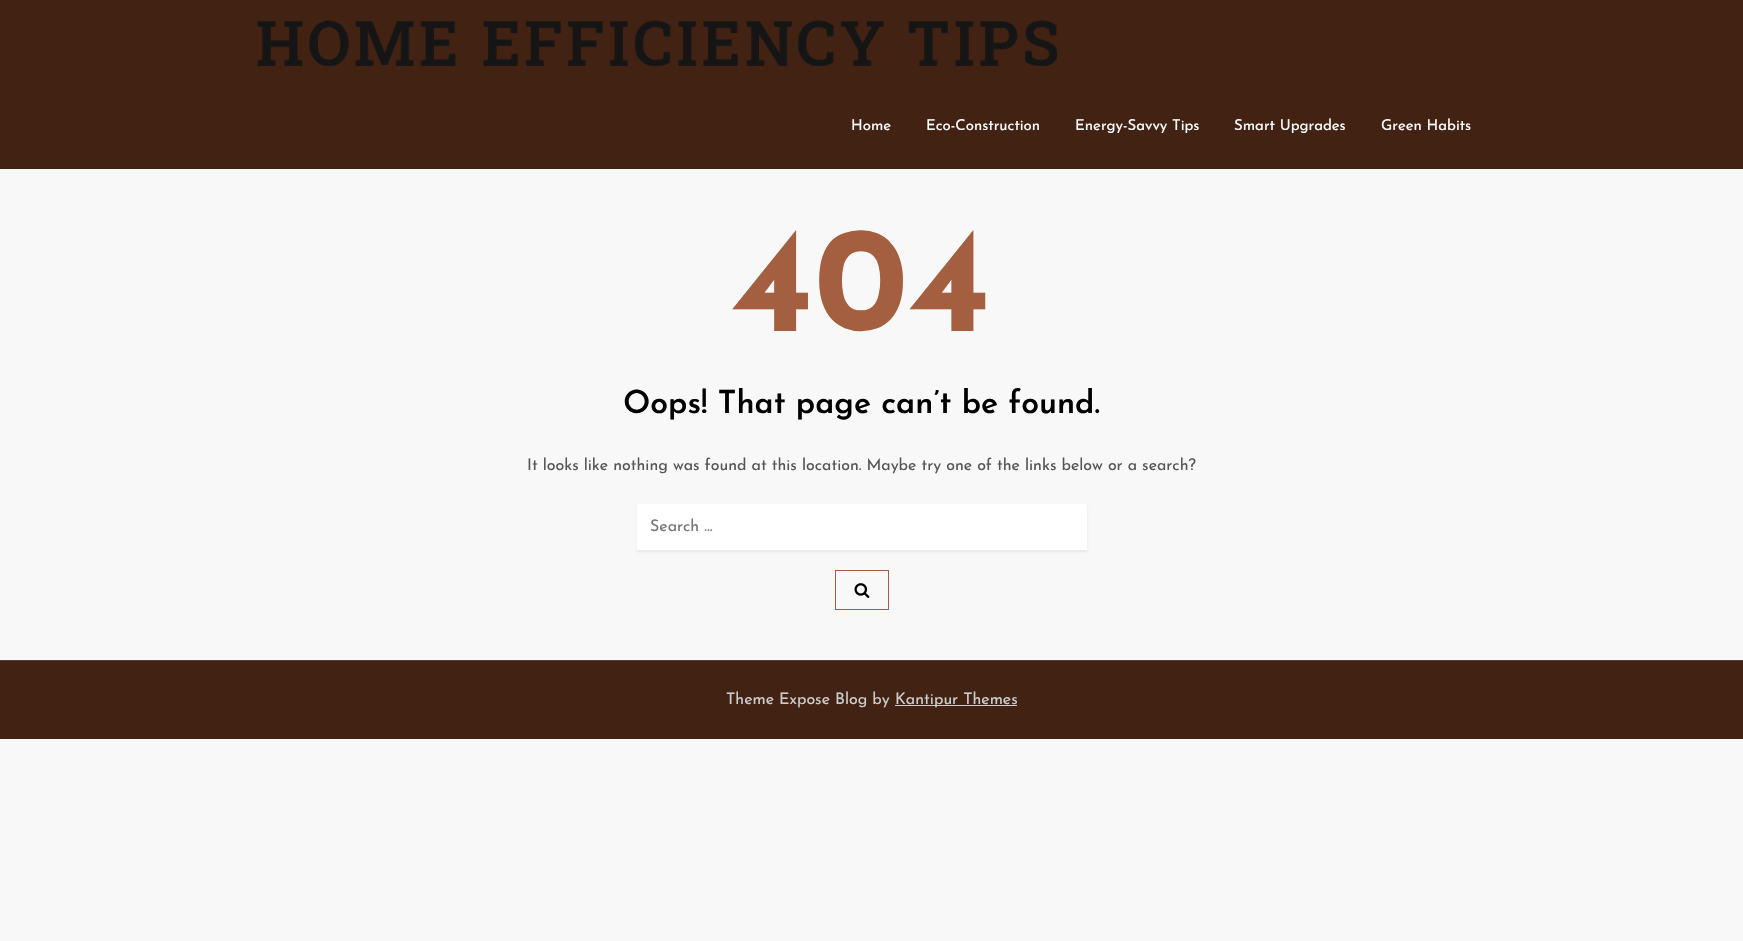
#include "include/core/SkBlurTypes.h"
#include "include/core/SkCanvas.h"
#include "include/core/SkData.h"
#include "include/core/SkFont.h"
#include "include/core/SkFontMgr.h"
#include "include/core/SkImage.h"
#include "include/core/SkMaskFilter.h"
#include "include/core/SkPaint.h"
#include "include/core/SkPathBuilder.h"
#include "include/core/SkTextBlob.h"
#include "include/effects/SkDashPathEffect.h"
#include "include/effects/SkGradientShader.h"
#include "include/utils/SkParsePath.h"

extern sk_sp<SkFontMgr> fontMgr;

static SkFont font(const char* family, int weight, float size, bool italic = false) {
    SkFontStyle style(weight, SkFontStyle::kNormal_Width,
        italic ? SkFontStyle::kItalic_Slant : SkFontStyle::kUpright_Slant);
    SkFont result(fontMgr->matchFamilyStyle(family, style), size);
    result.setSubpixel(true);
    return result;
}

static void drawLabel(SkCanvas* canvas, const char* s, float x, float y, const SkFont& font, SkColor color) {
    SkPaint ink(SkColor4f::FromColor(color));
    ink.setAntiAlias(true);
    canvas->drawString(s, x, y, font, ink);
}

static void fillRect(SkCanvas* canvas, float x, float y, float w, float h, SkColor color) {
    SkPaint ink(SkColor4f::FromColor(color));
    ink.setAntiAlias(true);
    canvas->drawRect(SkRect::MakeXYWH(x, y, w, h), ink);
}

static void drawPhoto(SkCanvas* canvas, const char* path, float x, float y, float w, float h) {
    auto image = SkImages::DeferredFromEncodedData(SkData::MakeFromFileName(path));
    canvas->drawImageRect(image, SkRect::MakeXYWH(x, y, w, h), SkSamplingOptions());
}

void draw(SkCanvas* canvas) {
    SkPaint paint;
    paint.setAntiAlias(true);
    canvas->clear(0xFFF8F8F8);
    fillRect(canvas, 0, 0, 1743, 169, 0xFF422213);
    drawPhoto(canvas, "assets/img1.png", 257, 20, 800, 46);
    SkFont font1 = font("Josefin Sans", 400, 15);
    drawLabel(canvas, "Home", 851, 130, font1, 0xFFFFFFFF);
    drawLabel(canvas, "Eco-Construction", 926, 130, font1, 0xFFFFFFFF);
    drawLabel(canvas, "Energy-Savvy Tips", 1075, 130, font1, 0xFFFFFFFF);
    drawLabel(canvas, "Smart Upgrades", 1234, 130, font1, 0xFFFFFFFF);
    drawLabel(canvas, "Green Habits", 1381, 130, font1, 0xFFFFFFFF);
    SkFont font2 = font("Josefin Sans", 700, 150);
    drawLabel(canvas, "404", 731, 331, font2, 0xFFA45F41);
    SkFont font3 = font("Josefin Sans", 600, 32);
    drawLabel(canvas, "Oops! That page can’t be found.", 623, 413, font3, 0xFF000000);
    SkFont font4 = font("Josefin Sans", 400, 16);
    drawLabel(canvas, "It looks like nothing was found at this location. Maybe try one of the links below or a search?", 527, 470, font4, 0xFF555555);
    paint.setColor(0x0F000000);
    paint.setMaskFilter(SkMaskFilter::MakeBlur(kNormal_SkBlurStyle, 1));
    canvas->drawRect(SkRect::MakeXYWH(637, 506, 450, 46), paint);
    paint.setMaskFilter(nullptr);
    fillRect(canvas, 637, 504, 450, 46, 0xFFFFFFFF);
    drawLabel(canvas, "Search …", 650, 531, font4, 0xFF757575);
    paint.setStroke(true);
    paint.setStrokeWidth(1);
    paint.setColor(0xFFA45F41);
    canvas->drawRect(SkRect::MakeXYWH(835.5f, 570.5f, 53, 39), paint);
    drawPhoto(canvas, "assets/img2.png", 854, 583, 16, 15);
    fillRect(canvas, 0, 661, 1743, 78, 0xFF422213);
    fillRect(canvas, 0, 660, 1743, 1, 0xFF513E35);
    drawLabel(canvas, "Theme Expose Blog by", 726, 704, font4, 0xFFCCCCCC);
    fillRect(canvas, 895, 705, 122, 1, 0xFFCCCCCC);
    drawLabel(canvas, "Kantipur Themes", 895, 704, font4, 0xFFCCCCCC);
}
